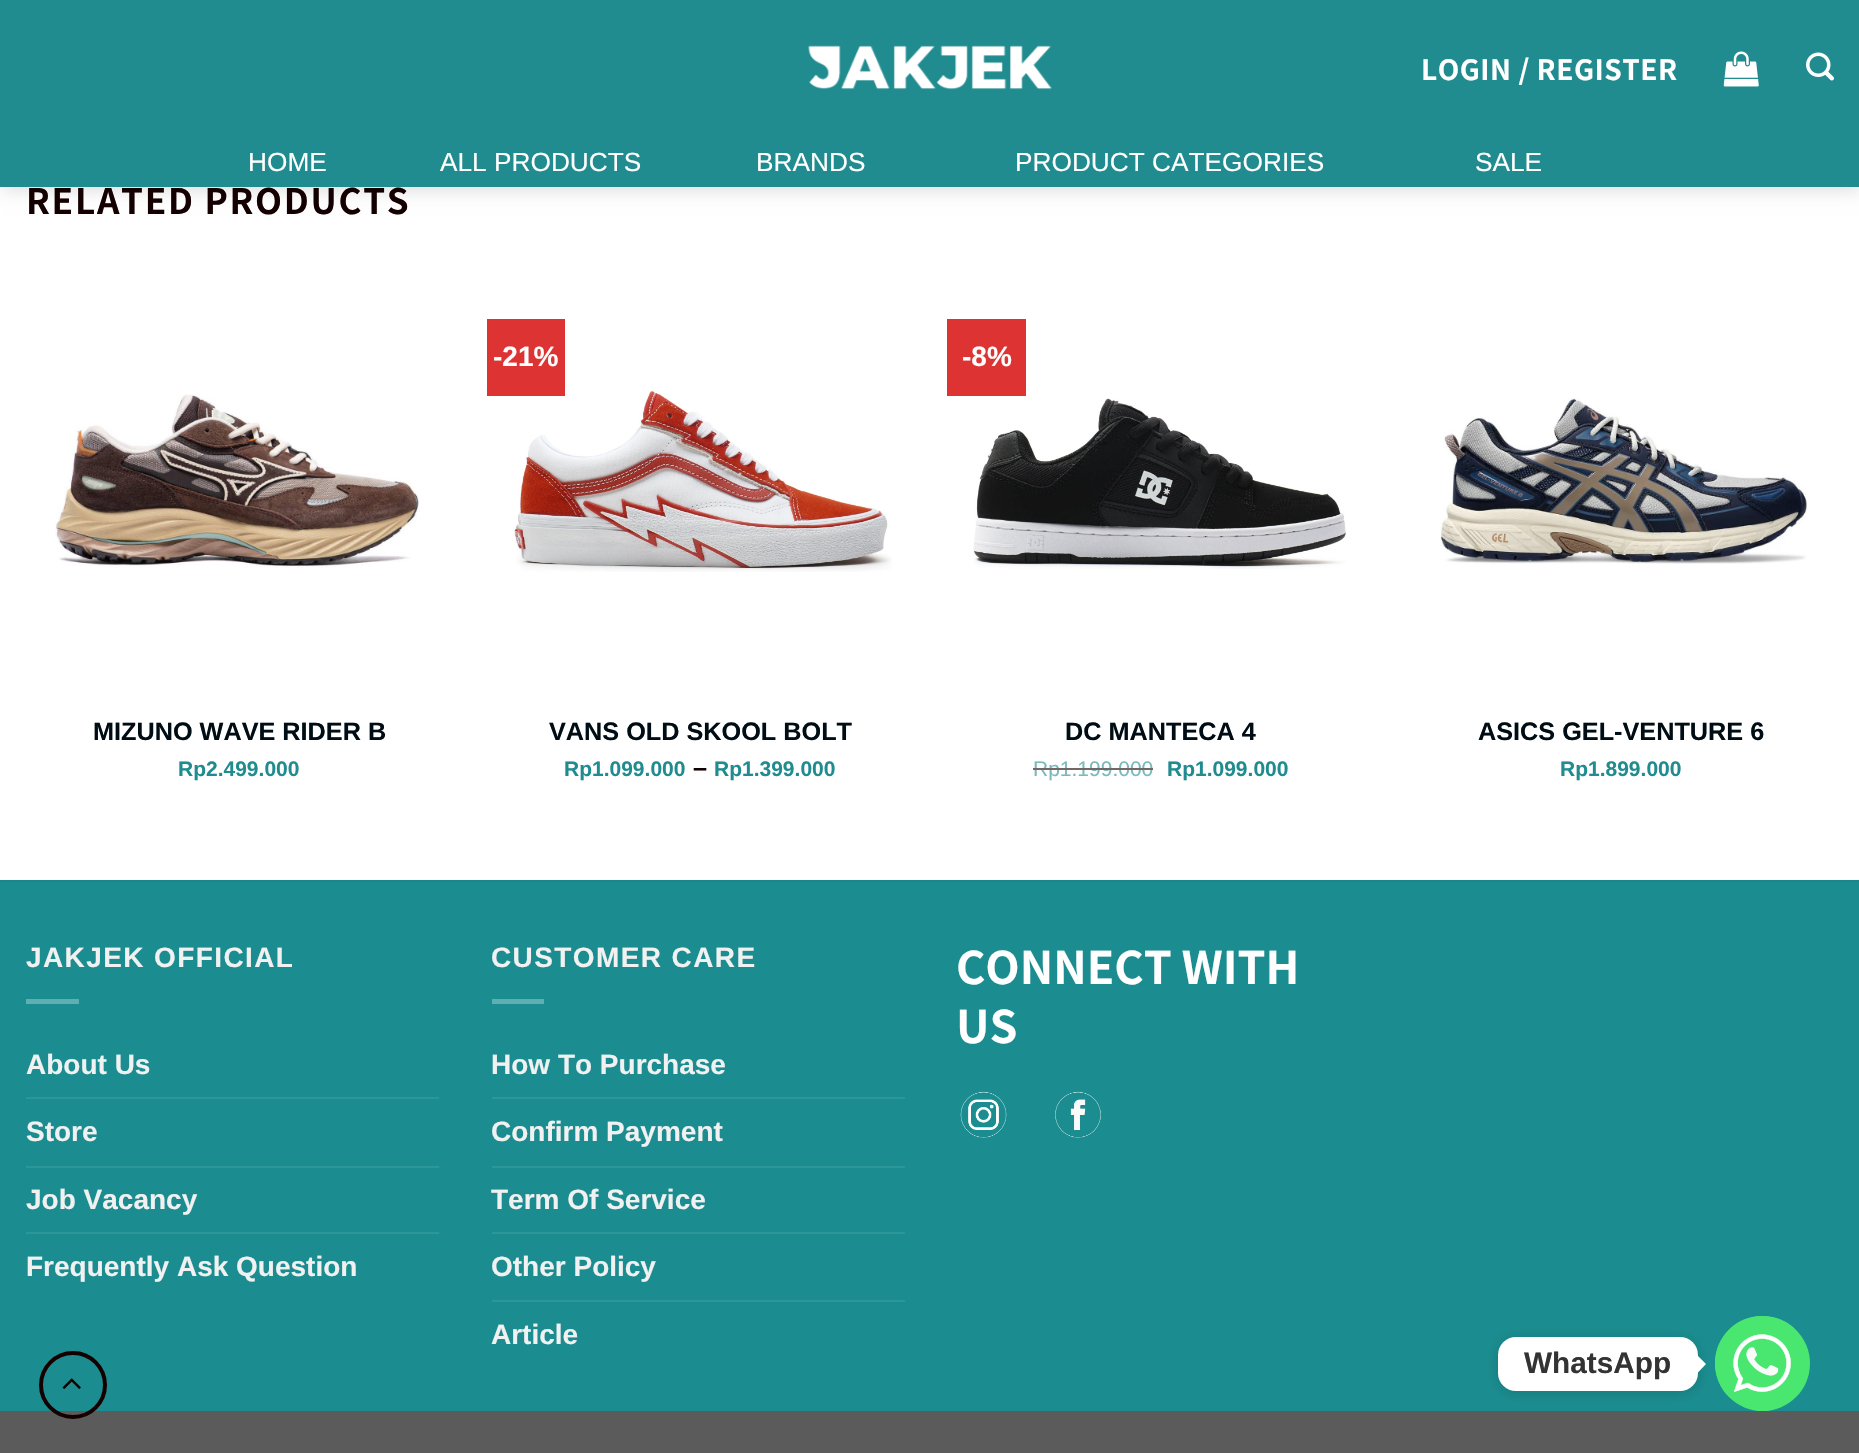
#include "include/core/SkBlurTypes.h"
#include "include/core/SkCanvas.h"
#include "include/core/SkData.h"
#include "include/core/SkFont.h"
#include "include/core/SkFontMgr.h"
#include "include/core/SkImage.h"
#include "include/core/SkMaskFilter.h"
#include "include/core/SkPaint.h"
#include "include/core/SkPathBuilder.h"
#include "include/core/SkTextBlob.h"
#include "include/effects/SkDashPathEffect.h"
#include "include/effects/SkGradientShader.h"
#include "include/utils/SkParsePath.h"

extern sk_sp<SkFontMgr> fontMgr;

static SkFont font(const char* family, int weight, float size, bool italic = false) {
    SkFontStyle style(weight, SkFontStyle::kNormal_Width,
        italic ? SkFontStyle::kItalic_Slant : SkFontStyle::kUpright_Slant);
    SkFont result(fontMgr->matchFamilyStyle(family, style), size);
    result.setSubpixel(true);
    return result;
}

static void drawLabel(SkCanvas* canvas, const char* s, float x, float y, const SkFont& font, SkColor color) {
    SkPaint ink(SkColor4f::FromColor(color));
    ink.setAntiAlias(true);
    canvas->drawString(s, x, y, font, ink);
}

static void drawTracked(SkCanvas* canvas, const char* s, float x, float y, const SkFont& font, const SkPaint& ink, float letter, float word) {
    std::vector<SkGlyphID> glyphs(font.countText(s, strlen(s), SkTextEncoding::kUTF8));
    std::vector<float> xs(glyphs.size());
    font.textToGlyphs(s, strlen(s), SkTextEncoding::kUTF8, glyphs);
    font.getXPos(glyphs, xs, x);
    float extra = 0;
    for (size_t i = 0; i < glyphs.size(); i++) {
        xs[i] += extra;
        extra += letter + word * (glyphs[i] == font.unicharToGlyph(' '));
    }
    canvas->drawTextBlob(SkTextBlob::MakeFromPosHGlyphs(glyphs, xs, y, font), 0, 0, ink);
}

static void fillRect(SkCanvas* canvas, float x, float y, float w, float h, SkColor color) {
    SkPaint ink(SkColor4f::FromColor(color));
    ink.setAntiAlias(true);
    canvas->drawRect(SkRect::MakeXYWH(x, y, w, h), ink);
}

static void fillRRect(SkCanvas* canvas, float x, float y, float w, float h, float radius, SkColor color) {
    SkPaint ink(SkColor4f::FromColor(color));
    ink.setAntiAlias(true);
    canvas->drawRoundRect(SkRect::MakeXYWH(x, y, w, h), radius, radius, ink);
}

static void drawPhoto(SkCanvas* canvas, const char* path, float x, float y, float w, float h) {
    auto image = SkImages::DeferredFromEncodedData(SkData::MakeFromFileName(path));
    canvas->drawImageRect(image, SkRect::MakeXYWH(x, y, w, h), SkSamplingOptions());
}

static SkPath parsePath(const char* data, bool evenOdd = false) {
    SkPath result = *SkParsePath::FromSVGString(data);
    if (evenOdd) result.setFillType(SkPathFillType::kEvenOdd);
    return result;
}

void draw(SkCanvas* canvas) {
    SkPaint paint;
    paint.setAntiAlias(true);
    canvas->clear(0xFFFFFFFF);
    paint.setColor(0x26000000);
    paint.setMaskFilter(SkMaskFilter::MakeBlur(kNormal_SkBlurStyle, 9));
    canvas->drawRect(SkRect::MakeXYWH(2, 2, 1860, 187), paint);
    paint.setMaskFilter(nullptr);
    fillRect(canvas, 0, 0, 1859, 187, 0xFF208C8F);
    drawPhoto(canvas, "assets/img1.png", 808, 45, 244, 45);
    SkFont font1 = font("Noto Sans TC", 700, 28);
    paint.setColor(0xFFFFFFFF);
    drawTracked(canvas, "LOGIN / REGISTER", 1421, 80, font1, paint, 0.5f, 0);
    drawPhoto(canvas, "assets/img2.png", 1723, 51, 36, 36);
    drawPhoto(canvas, "assets/img3.png", 1806, 52, 28, 29);
    SkFont font2 = font("Liberation Sans", 400, 26.25f);
    drawLabel(canvas, "HOME", 248, 171, font2, 0xFFFFFFFF);
    drawLabel(canvas, "ALL PRODUCTS", 440, 171, font2, 0xFFFFFFFF);
    drawLabel(canvas, "BRANDS", 756, 171, font2, 0xFFFFFFFF);
    drawLabel(canvas, "PRODUCT CATEGORIES", 1015, 171, font2, 0xFFFFFFFF);
    drawLabel(canvas, "SALE", 1475, 171, font2, 0xFFFFFFFF);
    SkFont font3 = font("Noto Sans TC", 700, 35);
    paint.setColor(0xFF140000);
    drawTracked(canvas, "RELATED PRODUCTS", 26, 214, font3, paint, 1.75f, 0);
    drawPhoto(canvas, "assets/img4.png", 55, 394, 365, 174);
    SkFont font4 = font("Liberation Sans", 700, 25.25f);
    drawLabel(canvas, "MIZUNO WAVE RIDER Β", 93, 740, font4, 0xFF000D14);
    SkFont font5 = font("Liberation Sans", 700, 21);
    drawLabel(canvas, "Rp2.499.000", 178, 776, font5, 0xFF208C8F);
    drawPhoto(canvas, "assets/img5.png", 513, 390, 379, 182);
    fillRect(canvas, 487, 319, 78, 77, 0xFFDD3333);
    SkFont font6 = font("Liberation Sans", 700, 28);
    drawLabel(canvas, "-21%", 493, 366, font6, 0xFFFFFFFF);
    drawLabel(canvas, "VANS OLD SKOOL BOLT", 549, 740, font4, 0xFF000D14);
    drawLabel(canvas, "Rp1.099.000", 564, 776, font5, 0xFF208C8F);
    drawLabel(canvas, "–", 693, 776, font4, 0xFF140000);
    drawLabel(canvas, "Rp1.399.000", 714, 776, font5, 0xFF208C8F);
    fillRect(canvas, 947, 319, 79, 77, 0xFFDD3333);
    drawLabel(canvas, "-8%", 962, 366, font6, 0xFFFFFFFF);
    drawPhoto(canvas, "assets/img6.png", 973, 398, 373, 171);
    drawLabel(canvas, "DC MANTECA 4", 1065, 740, font4, 0xFF000D14);
    SkFont font7 = font("Liberation Sans", 400, 21);
    drawLabel(canvas, "Rp1.199.000", 1033, 776, font7, 0xFF79BABC);
    fillRect(canvas, 1033, 768, 120, 2, 0xFF726666);
    drawLabel(canvas, "Rp1.099.000", 1167, 776, font5, 0xFF208C8F);
    drawPhoto(canvas, "assets/img7.png", 1440, 398, 370, 166);
    drawLabel(canvas, "ASICS GEL-VENTURE 6", 1478, 740, font4, 0xFF000D14);
    drawLabel(canvas, "Rp1.899.000", 1560, 776, font5, 0xFF208C8F);
    fillRect(canvas, 0, 882, 1859, 529, 0xFF1B8D90);
    fillRect(canvas, 0, 880, 1859, 2, 0xFF1A8689);
    paint.setColor(0xFFF1F1F1);
    drawTracked(canvas, "JAKJEK OFFICIAL", 26, 967, font6, paint, 1.4f, 0);
    fillRect(canvas, 26, 999, 53, 5, 0xFF5FAFB1);
    drawLabel(canvas, "About Us", 26, 1074, font6, 0xFFF1F1F1);
    fillRect(canvas, 26, 1097, 413, 2, 0xFF2D9699);
    drawLabel(canvas, "Store", 26, 1141, font6, 0xFFF1F1F1);
    fillRect(canvas, 26, 1166, 413, 2, 0xFF2D9699);
    drawLabel(canvas, "Job Vacancy", 26, 1209, font6, 0xFFF1F1F1);
    fillRect(canvas, 26, 1232, 413, 2, 0xFF2D9699);
    drawLabel(canvas, "Frequently Ask Question", 26, 1276, font6, 0xFFF1F1F1);
    drawTracked(canvas, "CUSTOMER CARE", 491, 967, font6, paint, 1.4f, 0);
    fillRect(canvas, 492, 999, 52, 5, 0xFF5FAFB1);
    drawLabel(canvas, "How To Purchase", 491, 1074, font6, 0xFFF1F1F1);
    fillRect(canvas, 492, 1097, 413, 2, 0xFF2D9699);
    drawLabel(canvas, "Confirm Payment", 491, 1141, font6, 0xFFF1F1F1);
    fillRect(canvas, 492, 1166, 413, 2, 0xFF2D9699);
    drawLabel(canvas, "Term Of Service", 491, 1209, font6, 0xFFF1F1F1);
    fillRect(canvas, 492, 1232, 413, 2, 0xFF2D9699);
    drawLabel(canvas, "Other Policy", 491, 1276, font6, 0xFFF1F1F1);
    fillRect(canvas, 492, 1300, 413, 2, 0xFF2D9699);
    drawLabel(canvas, "Article", 491, 1344, font6, 0xFFF1F1F1);
    SkFont font8 = font("Noto Sans TC", 700, 44.75f);
    drawLabel(canvas, "CONNECT WITH", 956, 984, font8, 0xFFFFFFFF);
    drawLabel(canvas, "US", 956, 1043, font8, 0xFFFFFFFF);
    drawPhoto(canvas, "assets/img8.png", 960, 1091, 47, 47);
    drawPhoto(canvas, "assets/img9.png", 1055, 1091, 46, 47);
    fillRect(canvas, 0, 1411, 1859, 42, 0xFF5B5B5B);
    paint.setStroke(true);
    paint.setStrokeWidth(4);
    paint.setColor(0xFF140000);
    canvas->drawCircle(73, 1385, 32, paint);
    drawPhoto(canvas, "assets/img10.png", 62, 1378, 19, 11);
    paint.setStroke(false);
    paint.setColor(0xFF49E670);
    canvas->drawCircle(1762.5f, 1363.5f, 47.5f, paint);
    drawPhoto(canvas, "assets/img11.png", 1715, 1316, 76, 76);
    paint.setColor(0x26000000);
    paint.setMaskFilter(SkMaskFilter::MakeBlur(kNormal_SkBlurStyle, 7));
    canvas->drawRoundRect(SkRect::MakeXYWH(1498, 1339, 200, 54), 18, 18, paint);
    paint.setMaskFilter(nullptr);
    fillRRect(canvas, 1498, 1337, 200, 54, 18, 0xFFFFFFFF);
    SkFont font9 = font("Liberation Sans", 700, 29.75f);
    drawLabel(canvas, "WhatsApp", 1524, 1373, font9, 0xFF333333);
    paint.setColor(0xFFFFFFFF);
    canvas->drawPath(parsePath("M1697.5 1373V1355.5L1706 1364Z"), paint);
}
